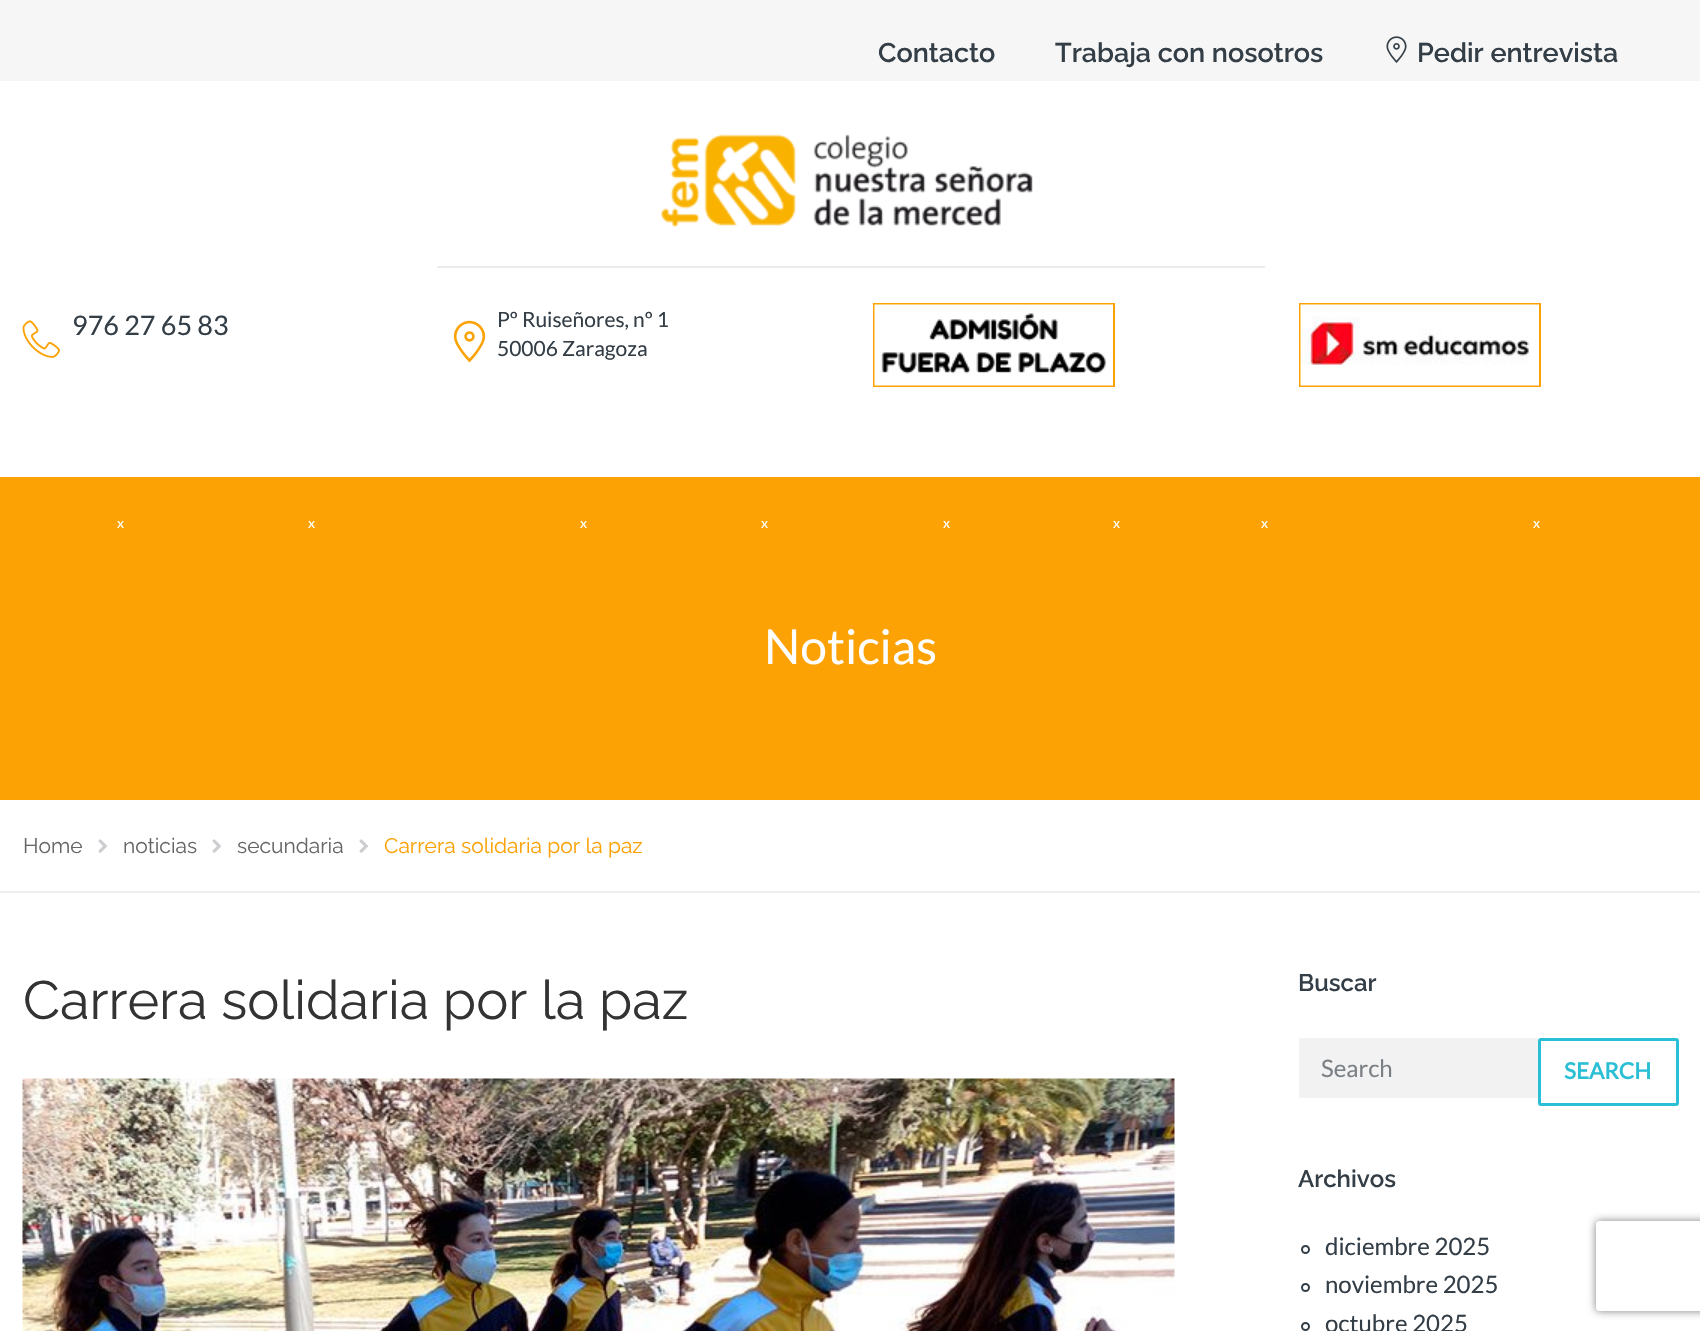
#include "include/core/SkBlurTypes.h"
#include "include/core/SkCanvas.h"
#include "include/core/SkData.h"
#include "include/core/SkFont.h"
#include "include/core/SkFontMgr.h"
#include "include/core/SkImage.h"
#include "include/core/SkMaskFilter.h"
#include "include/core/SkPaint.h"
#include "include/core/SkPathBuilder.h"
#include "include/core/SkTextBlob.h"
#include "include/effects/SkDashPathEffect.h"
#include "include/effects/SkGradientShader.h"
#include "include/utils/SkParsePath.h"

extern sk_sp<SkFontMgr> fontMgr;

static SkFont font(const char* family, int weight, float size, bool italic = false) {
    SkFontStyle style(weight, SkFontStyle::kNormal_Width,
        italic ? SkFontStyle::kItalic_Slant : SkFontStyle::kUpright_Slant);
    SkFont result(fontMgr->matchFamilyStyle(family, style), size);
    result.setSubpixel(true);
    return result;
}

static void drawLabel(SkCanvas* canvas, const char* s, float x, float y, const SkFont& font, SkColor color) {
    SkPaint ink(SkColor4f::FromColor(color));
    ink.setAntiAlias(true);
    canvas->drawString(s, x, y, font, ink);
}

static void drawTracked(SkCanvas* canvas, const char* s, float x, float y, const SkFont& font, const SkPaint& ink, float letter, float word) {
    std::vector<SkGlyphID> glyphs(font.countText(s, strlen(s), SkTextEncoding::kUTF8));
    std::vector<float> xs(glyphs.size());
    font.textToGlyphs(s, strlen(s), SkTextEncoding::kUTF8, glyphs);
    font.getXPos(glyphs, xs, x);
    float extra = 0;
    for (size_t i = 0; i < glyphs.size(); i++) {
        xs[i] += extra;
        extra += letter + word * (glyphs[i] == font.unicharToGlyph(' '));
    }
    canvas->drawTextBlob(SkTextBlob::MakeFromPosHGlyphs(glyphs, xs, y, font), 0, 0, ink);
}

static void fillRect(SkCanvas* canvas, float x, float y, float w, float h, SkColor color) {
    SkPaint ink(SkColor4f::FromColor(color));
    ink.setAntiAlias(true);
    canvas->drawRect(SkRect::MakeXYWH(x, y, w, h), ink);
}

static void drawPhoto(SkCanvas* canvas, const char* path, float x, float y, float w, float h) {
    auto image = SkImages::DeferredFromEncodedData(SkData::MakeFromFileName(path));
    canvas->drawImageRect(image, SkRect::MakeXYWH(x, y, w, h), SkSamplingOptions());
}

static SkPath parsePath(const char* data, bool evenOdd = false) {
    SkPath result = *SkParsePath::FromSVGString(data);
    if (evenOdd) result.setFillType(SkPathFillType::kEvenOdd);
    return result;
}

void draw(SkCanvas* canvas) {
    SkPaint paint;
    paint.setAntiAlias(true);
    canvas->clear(0xFFFFFFFF);
    fillRect(canvas, 0, 0, 1700, 81, 0xFFF6F6F6);
    SkFont font1 = font("Raleway", 600, 27);
    drawLabel(canvas, "Contacto", 878, 62, font1, 0xFF343E47);
    drawLabel(canvas, "Trabaja con nosotros", 1055, 62, font1, 0xFF343E47);
    drawPhoto(canvas, "assets/img1.png", 1386, 36, 21, 27);
    drawLabel(canvas, "Pedir entrevista", 1417, 62, font1, 0xFF343E47);
    drawPhoto(canvas, "assets/img2.png", 661, 134, 372, 93);
    fillRect(canvas, 437, 266, 828, 2, 0xFFEBEBEB);
    drawPhoto(canvas, "assets/img3.png", 22, 320, 38, 38);
    SkFont font2 = font("Lato", 400, 27);
    drawLabel(canvas, "976 27 65 83", 72, 335, font2, 0xFF343E47);
    drawPhoto(canvas, "assets/img4.png", 453, 320, 33, 43);
    SkFont font3 = font("Lato", 400, 21);
    drawLabel(canvas, "Pº Ruiseñores, nº 1", 497, 327, font3, 0xFF343E47);
    drawLabel(canvas, "50006 Zaragoza", 497, 356, font3, 0xFF343E47);
    paint.setStroke(true);
    paint.setStrokeWidth(2);
    paint.setColor(0xFFFCA205);
    canvas->drawRect(SkRect::MakeXYWH(874, 304, 240, 82), paint);
    drawPhoto(canvas, "assets/img5.png", 874, 304, 239, 82);
    canvas->drawRect(SkRect::MakeXYWH(1300, 304, 240, 82), paint);
    drawPhoto(canvas, "assets/img6.png", 1300, 304, 239, 82);
    fillRect(canvas, 0, 477, 1700, 323, 0xFFFCA205);
    SkFont font4 = font("Lato", 400, 14);
    paint.setStroke(false);
    paint.setColor(0xFFFFFFFF);
    drawTracked(canvas, "x", 117, 528, font4, paint, 2, 0);
    drawTracked(canvas, "x", 308, 528, font4, paint, 2, 0);
    drawTracked(canvas, "x", 580, 528, font4, paint, 2, 0);
    drawTracked(canvas, "x", 761, 528, font4, paint, 2, 0);
    drawTracked(canvas, "x", 943, 528, font4, paint, 2, 0);
    drawTracked(canvas, "x", 1113, 528, font4, paint, 2, 0);
    drawTracked(canvas, "x", 1261, 528, font4, paint, 2, 0);
    drawTracked(canvas, "x", 1533, 528, font4, paint, 2, 0);
    SkFont font5 = font("Lato", 400, 48);
    drawLabel(canvas, "Noticias", 764, 664, font5, 0xFFFFFFFF);
    fillRect(canvas, 0, 891, 1700, 2, 0xFFEEEEEE);
    SkFont font6 = font("Raleway", 400, 21);
    drawLabel(canvas, "Home", 23, 853, font6, 0xFF666666);
    drawPhoto(canvas, "assets/img7.png", 98, 839, 9, 14);
    drawLabel(canvas, "noticias", 123, 853, font6, 0xFF666666);
    drawPhoto(canvas, "assets/img7.png", 212, 839, 9, 14);
    drawLabel(canvas, "secundaria", 237, 853, font6, 0xFF666666);
    drawPhoto(canvas, "assets/img7.png", 359, 839, 9, 14);
    drawLabel(canvas, "Carrera solidaria por la paz", 384, 853, font6, 0xFFFCA205);
    SkFont font7 = font("Raleway", 400, 54);
    drawLabel(canvas, "Carrera solidaria por la paz", 23, 1019, font7, 0xFF333333);
    drawPhoto(canvas, "assets/img8.png", 22, 1078, 1153, 253);
    SkFont font8 = font("Raleway", 600, 24);
    drawLabel(canvas, "Buscar", 1298, 991, font8, 0xFF343E47);
    fillRect(canvas, 1299, 1038, 239, 60, 0xFFF2F2F2);
    SkFont font9 = font("Lato", 400, 24);
    drawLabel(canvas, "Search", 1321, 1077, font9, 0xFF7B8085);
    paint.setStroke(true);
    paint.setStrokeWidth(3);
    paint.setColor(0xFF2ABFD4);
    canvas->drawRoundRect(SkRect::MakeXYWH(1539.5f, 1039.5f, 138, 65), 1.5f, 1.5f, paint);
    SkFont font10 = font("Lato", 700, 22.5f);
    drawLabel(canvas, "SEARCH", 1564, 1079, font10, 0xFF2ABFD4);
    drawLabel(canvas, "Archivos", 1298, 1187, font8, 0xFF343E47);
    paint.setStrokeWidth(2);
    paint.setColor(0xFF343E47);
    canvas->drawCircle(1305.5f, 1249.5f, 3.5f, paint);
    drawLabel(canvas, "diciembre 2025", 1325, 1255, font9, 0xFF343E47);
    canvas->drawCircle(1305.5f, 1287.5f, 3.5f, paint);
    drawLabel(canvas, "noviembre 2025", 1325, 1293, font9, 0xFF343E47);
    canvas->drawCircle(1305.5f, 1326.5f, 3.5f, paint);
    drawLabel(canvas, "octubre 2025", 1325, 1332, font9, 0xFF343E47);
    canvas->save();
    canvas->clipPath(parsePath("M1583 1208H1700V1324H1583ZM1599 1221H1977C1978.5 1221 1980 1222.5 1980 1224V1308C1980 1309.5 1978.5 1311 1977 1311H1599C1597.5 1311 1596 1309.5 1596 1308V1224C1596 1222.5 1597.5 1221 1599 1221Z", true), true);
    paint.setStroke(false);
    paint.setColor(0xFF808080);
    paint.setMaskFilter(SkMaskFilter::MakeBlur(kNormal_SkBlurStyle, 4));
    canvas->drawRoundRect(SkRect::MakeXYWH(1596, 1221, 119, 90), 3, 3, paint);
    paint.setMaskFilter(nullptr);
    canvas->restore();
}
